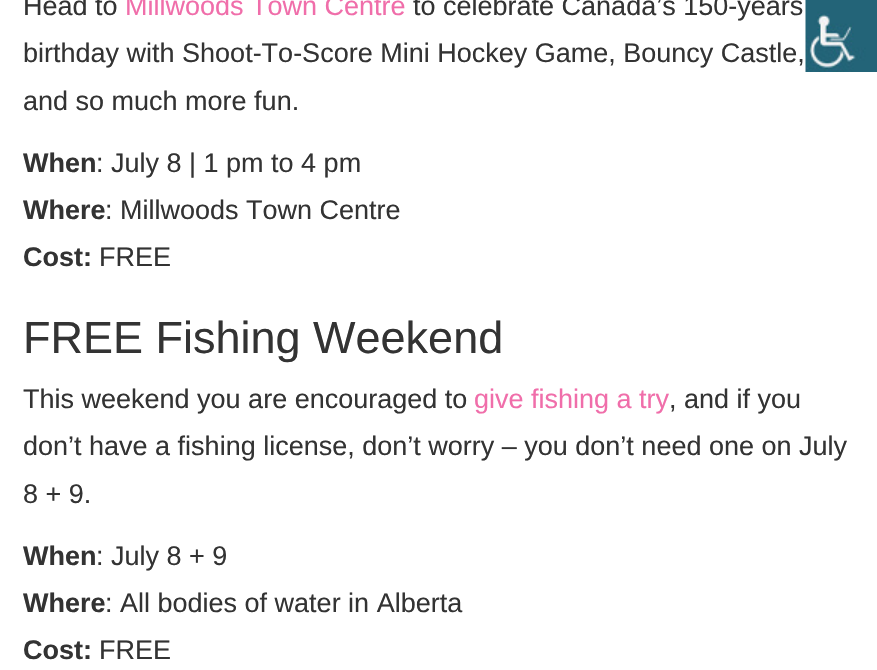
#include "include/core/SkBlurTypes.h"
#include "include/core/SkCanvas.h"
#include "include/core/SkData.h"
#include "include/core/SkFont.h"
#include "include/core/SkFontMgr.h"
#include "include/core/SkImage.h"
#include "include/core/SkMaskFilter.h"
#include "include/core/SkPaint.h"
#include "include/core/SkPathBuilder.h"
#include "include/core/SkTextBlob.h"
#include "include/effects/SkDashPathEffect.h"
#include "include/effects/SkGradientShader.h"
#include "include/utils/SkParsePath.h"

extern sk_sp<SkFontMgr> fontMgr;

static SkFont font(const char* family, int weight, float size, bool italic = false) {
    SkFontStyle style(weight, SkFontStyle::kNormal_Width,
        italic ? SkFontStyle::kItalic_Slant : SkFontStyle::kUpright_Slant);
    SkFont result(fontMgr->matchFamilyStyle(family, style), size);
    result.setSubpixel(true);
    return result;
}

static void drawLabel(SkCanvas* canvas, const char* s, float x, float y, const SkFont& font, SkColor color) {
    SkPaint ink(SkColor4f::FromColor(color));
    ink.setAntiAlias(true);
    canvas->drawString(s, x, y, font, ink);
}

static void drawPhoto(SkCanvas* canvas, const char* path, float x, float y, float w, float h) {
    auto image = SkImages::DeferredFromEncodedData(SkData::MakeFromFileName(path));
    canvas->drawImageRect(image, SkRect::MakeXYWH(x, y, w, h), SkSamplingOptions());
}

void draw(SkCanvas* canvas) {
    SkPaint paint;
    paint.setAntiAlias(true);
    canvas->clear(0xFFFFFFFF);
    SkFont font1 = font("Liberation Sans", 400, 27);
    drawLabel(canvas, "Head to", 23, 15, font1, 0xFF333333);
    drawLabel(canvas, "Millwoods Town Centre", 125, 15, font1, 0xFFF06EAA);
    drawLabel(canvas, "to celebrate Canada’s 150-years", 413, 15, font1, 0xFF333333);
    drawLabel(canvas, "birthday with Shoot-To-Score Mini Hockey Game, Bouncy Castle,", 23, 62, font1, 0xFF333333);
    drawLabel(canvas, "and so much more fun.", 23, 110, font1, 0xFF333333);
    SkFont font2 = font("Liberation Sans", 700, 27);
    drawLabel(canvas, "When", 23, 172, font2, 0xFF333333);
    drawLabel(canvas, ": July 8 | 1 pm to 4 pm", 96, 172, font1, 0xFF333333);
    drawLabel(canvas, "Where", 23, 219, font2, 0xFF333333);
    drawLabel(canvas, ": Millwoods Town Centre", 105, 219, font1, 0xFF333333);
    drawLabel(canvas, "Cost:", 23, 266, font2, 0xFF333333);
    drawLabel(canvas, "FREE", 99, 266, font1, 0xFF333333);
    SkFont font3 = font("Liberation Sans", 400, 45);
    drawLabel(canvas, "FREE Fishing Weekend", 23, 353, font3, 0xFF333333);
    drawLabel(canvas, "This weekend you are encouraged to", 23, 408, font1, 0xFF333333);
    drawLabel(canvas, "give fishing a try", 474, 408, font1, 0xFFF06EAA);
    drawLabel(canvas, ", and if you", 669, 408, font1, 0xFF333333);
    drawLabel(canvas, "don’t have a fishing license, don’t worry – you don’t need one on July", 23, 455, font1, 0xFF333333);
    drawLabel(canvas, "8 + 9.", 23, 503, font1, 0xFF333333);
    drawLabel(canvas, "When", 23, 565, font2, 0xFF333333);
    drawLabel(canvas, ": July 8 + 9", 96, 565, font1, 0xFF333333);
    drawLabel(canvas, "Where", 23, 612, font2, 0xFF333333);
    drawLabel(canvas, ": All bodies of water in Alberta", 105, 612, font1, 0xFF333333);
    drawLabel(canvas, "Cost:", 23, 659, font2, 0xFF333333);
    drawLabel(canvas, "FREE", 99, 659, font1, 0xFF333333);
    drawPhoto(canvas, "assets/img1.png", 805, 0, 72, 72);
}
